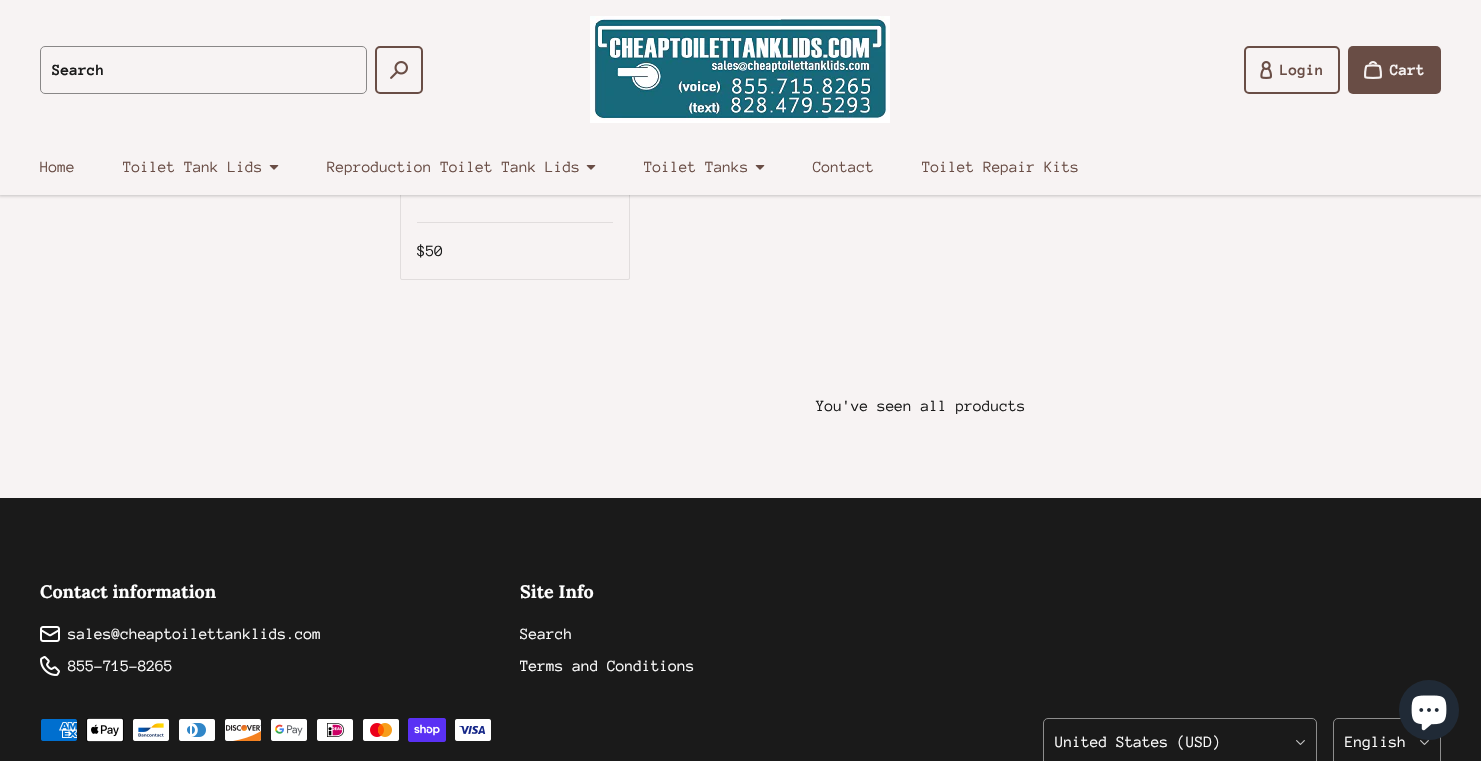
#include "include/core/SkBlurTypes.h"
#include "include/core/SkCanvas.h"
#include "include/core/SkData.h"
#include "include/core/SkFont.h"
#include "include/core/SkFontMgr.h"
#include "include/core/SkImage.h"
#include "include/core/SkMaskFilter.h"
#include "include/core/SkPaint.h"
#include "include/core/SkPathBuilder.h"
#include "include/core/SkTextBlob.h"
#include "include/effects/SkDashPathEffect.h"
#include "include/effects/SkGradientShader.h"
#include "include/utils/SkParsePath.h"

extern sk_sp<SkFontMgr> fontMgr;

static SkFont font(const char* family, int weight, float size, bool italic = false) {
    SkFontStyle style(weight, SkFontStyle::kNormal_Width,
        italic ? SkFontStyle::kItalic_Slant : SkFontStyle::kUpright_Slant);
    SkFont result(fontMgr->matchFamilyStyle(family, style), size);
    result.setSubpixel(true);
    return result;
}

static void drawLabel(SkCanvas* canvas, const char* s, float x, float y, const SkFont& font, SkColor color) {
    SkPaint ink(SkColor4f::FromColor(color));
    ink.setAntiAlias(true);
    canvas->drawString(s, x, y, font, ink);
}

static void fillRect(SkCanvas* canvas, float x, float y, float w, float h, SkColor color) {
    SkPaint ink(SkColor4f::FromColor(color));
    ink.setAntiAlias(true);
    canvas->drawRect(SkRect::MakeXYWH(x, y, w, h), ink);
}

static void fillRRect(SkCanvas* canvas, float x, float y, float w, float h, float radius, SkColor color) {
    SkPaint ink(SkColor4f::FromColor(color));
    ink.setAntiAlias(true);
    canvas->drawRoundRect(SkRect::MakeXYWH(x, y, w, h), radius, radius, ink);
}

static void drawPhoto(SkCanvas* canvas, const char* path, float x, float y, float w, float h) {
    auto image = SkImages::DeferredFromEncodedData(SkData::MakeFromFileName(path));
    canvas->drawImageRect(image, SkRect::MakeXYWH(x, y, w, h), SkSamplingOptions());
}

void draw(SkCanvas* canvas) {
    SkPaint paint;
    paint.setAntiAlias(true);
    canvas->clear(0xFF1A1A1A);
    fillRect(canvas, 0, 195, 1481, 303, 0xFFF7F3F3);
    paint.setStroke(true);
    paint.setStrokeWidth(1);
    paint.setColor(0xFFE1DDDD);
    canvas->drawRoundRect(SkRect::MakeXYWH(400.5f, -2.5f, 229, 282), 1.5f, 1.5f, paint);
    paint.setStroke(false);
    paint.setColor(0x40000000);
    paint.setMaskFilter(SkMaskFilter::MakeBlur(kNormal_SkBlurStyle, 1.5f));
    canvas->drawRect(SkRect::MakeXYWH(-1, 194, 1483, 2), paint);
    paint.setMaskFilter(nullptr);
    fillRect(canvas, 0, 0, 1481, 195, 0xFFF7F3F3);
    paint.setStroke(true);
    paint.setColor(0xFF898787);
    canvas->drawRoundRect(SkRect::MakeXYWH(40.5f, 46.5f, 326, 47), 4.5f, 4.5f, paint);
    SkFont font1 = font("Anonymous Pro", 700, 16);
    drawLabel(canvas, "Search", 52, 75, font1, 0xFF1A1A1A);
    paint.setStrokeWidth(2);
    paint.setColor(0xFF694D45);
    canvas->drawRoundRect(SkRect::MakeXYWH(376, 47, 46, 46), 4, 4, paint);
    drawPhoto(canvas, "assets/img1.png", 390, 61, 18, 18);
    drawPhoto(canvas, "assets/img2.png", 590, 16, 300, 107);
    canvas->drawRoundRect(SkRect::MakeXYWH(1245, 47, 94, 46), 4, 4, paint);
    drawPhoto(canvas, "assets/img3.png", 1260, 61, 12, 18);
    drawLabel(canvas, "Login", 1280, 75, font1, 0xFF694D45);
    fillRRect(canvas, 1348, 46, 93, 48, 5, 0xFF694D45);
    drawPhoto(canvas, "assets/img4.png", 1364, 61, 18, 18);
    drawLabel(canvas, "Cart", 1390, 75, font1, 0xFFF7F3F3);
    SkFont font2 = font("Anonymous Pro", 400, 16);
    drawLabel(canvas, "Home", 40, 172, font2, 0xFF694D45);
    drawLabel(canvas, "Toilet Tank Lids", 123, 172, font2, 0xFF694D45);
    drawPhoto(canvas, "assets/img5.png", 269, 165, 10, 5);
    drawLabel(canvas, "Reproduction Toilet Tank Lids", 327, 172, font2, 0xFF694D45);
    drawPhoto(canvas, "assets/img5.png", 586, 165, 10, 5);
    drawLabel(canvas, "Toilet Tanks", 644, 172, font2, 0xFF694D45);
    drawPhoto(canvas, "assets/img5.png", 755, 165, 10, 5);
    drawLabel(canvas, "Contact", 813, 172, font2, 0xFF694D45);
    drawLabel(canvas, "Toilet Repair Kits", 922, 172, font2, 0xFF694D45);
    fillRect(canvas, 417, 222, 196, 1, 0xFFE1DDDD);
    drawLabel(canvas, "$50", 417, 256, font2, 0xFF1A1A1A);
    drawLabel(canvas, "You've seen all products", 816, 411, font2, 0xFF1A1A1A);
    SkFont font3 = font("Lora", 700, 18);
    drawLabel(canvas, "Contact information", 40, 598, font3, 0xFFFFFFFF);
    drawPhoto(canvas, "assets/img6.png", 40, 626, 20, 16);
    drawLabel(canvas, "sales@cheaptoilettanklids.com", 68, 639, font2, 0xFFFFFFFF);
    drawPhoto(canvas, "assets/img7.png", 40, 656, 20, 20);
    drawLabel(canvas, "855-715-8265", 68, 671, font2, 0xFFFFFFFF);
    drawLabel(canvas, "Site Info", 520, 598, font3, 0xFFFFFFFF);
    drawLabel(canvas, "Search", 520, 639, font2, 0xFFFFFFFF);
    drawLabel(canvas, "Terms and Conditions", 520, 671, font2, 0xFFFFFFFF);
    drawPhoto(canvas, "assets/img8.png", 41, 719, 36, 22);
    drawPhoto(canvas, "assets/img9.png", 86, 718, 38, 24);
    drawPhoto(canvas, "assets/img10.png", 133, 719, 36, 22);
    drawPhoto(canvas, "assets/img11.png", 179, 719, 36, 22);
    drawPhoto(canvas, "assets/img12.png", 225, 719, 36, 22);
    drawPhoto(canvas, "assets/img13.png", 271, 719, 36, 22);
    drawPhoto(canvas, "assets/img14.png", 317, 719, 36, 22);
    drawPhoto(canvas, "assets/img15.png", 363, 719, 36, 22);
    drawPhoto(canvas, "assets/img16.png", 408, 718, 38, 24);
    drawPhoto(canvas, "assets/img17.png", 455, 719, 36, 22);
    paint.setStrokeWidth(1);
    paint.setColor(0xFF8D8D8D);
    canvas->drawRoundRect(SkRect::MakeXYWH(1043.5f, 718.5f, 273, 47), 4.5f, 4.5f, paint);
    drawLabel(canvas, "United States (USD)", 1055, 747, font2, 0xFFFFFFFF);
    drawPhoto(canvas, "assets/img18.png", 1296, 740, 9, 5);
    canvas->drawRoundRect(SkRect::MakeXYWH(1333.5f, 718.5f, 107, 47), 4.5f, 4.5f, paint);
    drawLabel(canvas, "English", 1345, 747, font2, 0xFFFFFFFF);
    drawPhoto(canvas, "assets/img18.png", 1420, 740, 9, 5);
    paint.setStroke(false);
    paint.setColor(0xFF202A36);
    canvas->drawCircle(1429, 710, 30, paint);
    drawPhoto(canvas, "assets/img19.png", 1411, 695, 36, 36);
}
